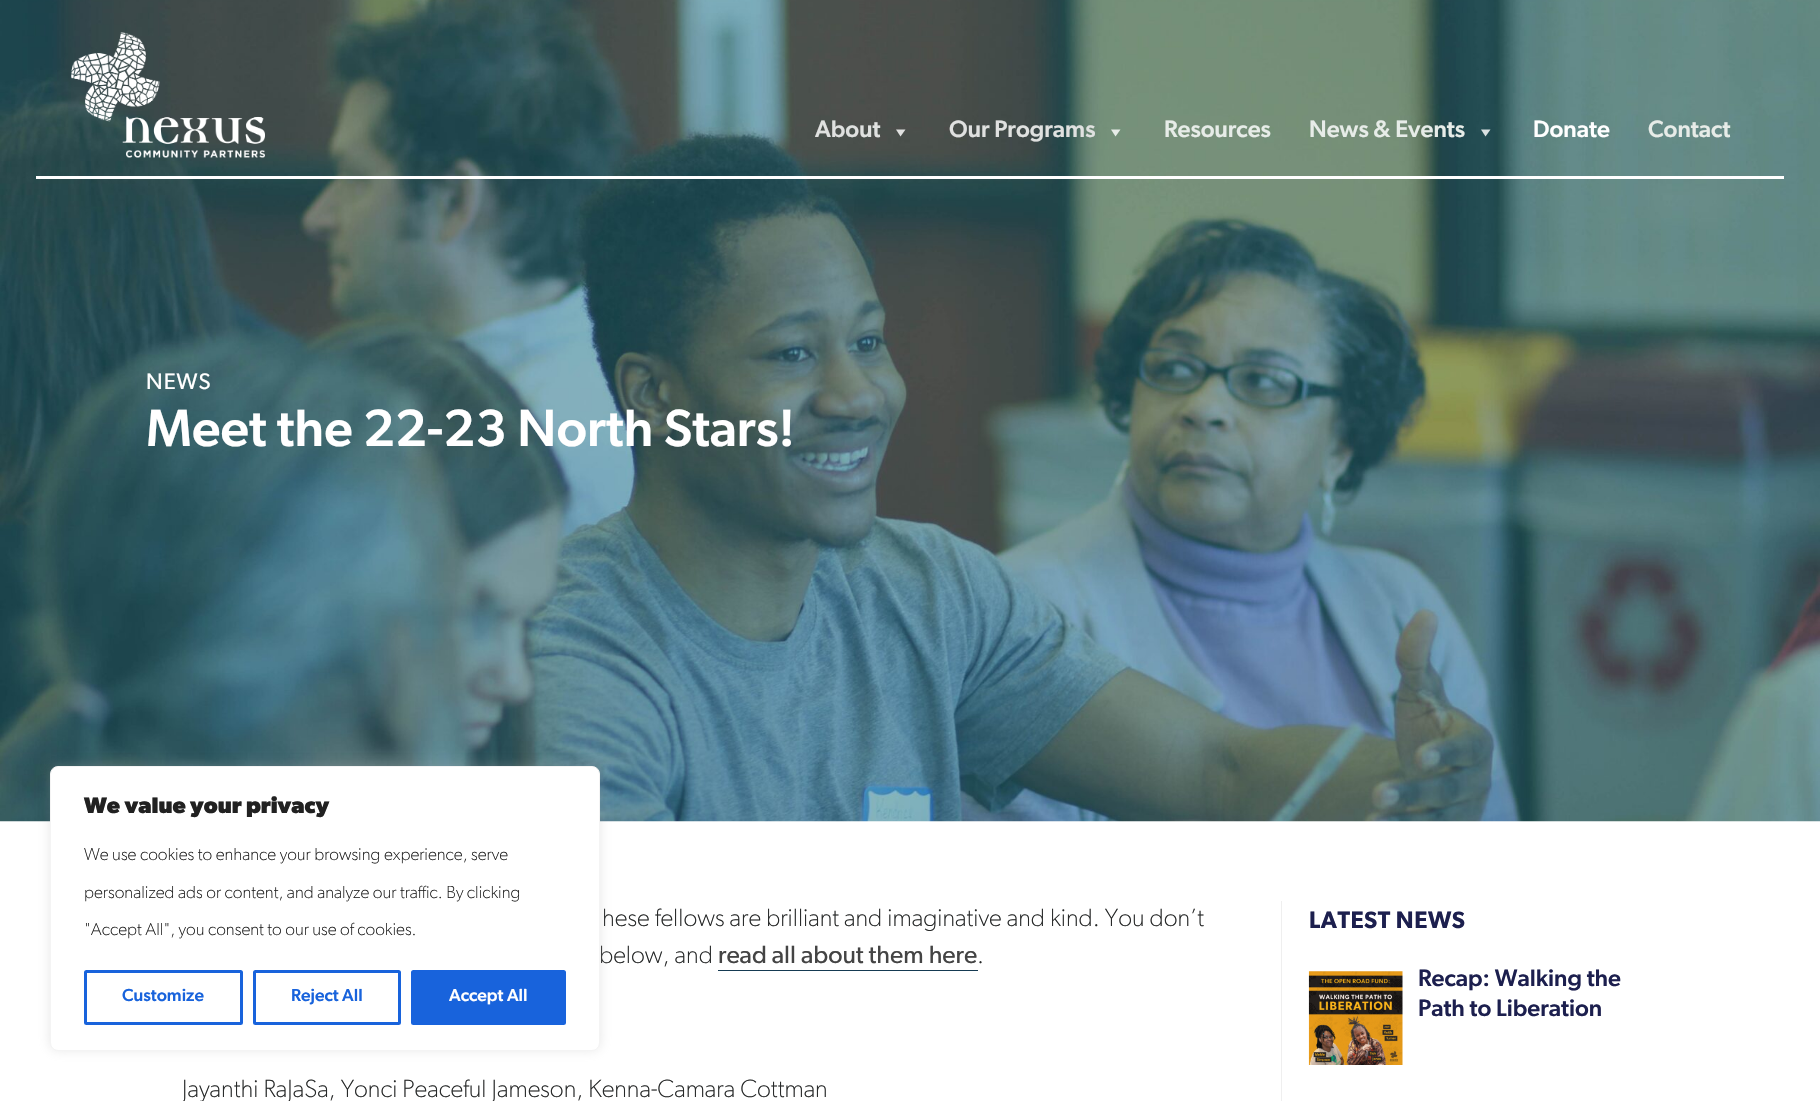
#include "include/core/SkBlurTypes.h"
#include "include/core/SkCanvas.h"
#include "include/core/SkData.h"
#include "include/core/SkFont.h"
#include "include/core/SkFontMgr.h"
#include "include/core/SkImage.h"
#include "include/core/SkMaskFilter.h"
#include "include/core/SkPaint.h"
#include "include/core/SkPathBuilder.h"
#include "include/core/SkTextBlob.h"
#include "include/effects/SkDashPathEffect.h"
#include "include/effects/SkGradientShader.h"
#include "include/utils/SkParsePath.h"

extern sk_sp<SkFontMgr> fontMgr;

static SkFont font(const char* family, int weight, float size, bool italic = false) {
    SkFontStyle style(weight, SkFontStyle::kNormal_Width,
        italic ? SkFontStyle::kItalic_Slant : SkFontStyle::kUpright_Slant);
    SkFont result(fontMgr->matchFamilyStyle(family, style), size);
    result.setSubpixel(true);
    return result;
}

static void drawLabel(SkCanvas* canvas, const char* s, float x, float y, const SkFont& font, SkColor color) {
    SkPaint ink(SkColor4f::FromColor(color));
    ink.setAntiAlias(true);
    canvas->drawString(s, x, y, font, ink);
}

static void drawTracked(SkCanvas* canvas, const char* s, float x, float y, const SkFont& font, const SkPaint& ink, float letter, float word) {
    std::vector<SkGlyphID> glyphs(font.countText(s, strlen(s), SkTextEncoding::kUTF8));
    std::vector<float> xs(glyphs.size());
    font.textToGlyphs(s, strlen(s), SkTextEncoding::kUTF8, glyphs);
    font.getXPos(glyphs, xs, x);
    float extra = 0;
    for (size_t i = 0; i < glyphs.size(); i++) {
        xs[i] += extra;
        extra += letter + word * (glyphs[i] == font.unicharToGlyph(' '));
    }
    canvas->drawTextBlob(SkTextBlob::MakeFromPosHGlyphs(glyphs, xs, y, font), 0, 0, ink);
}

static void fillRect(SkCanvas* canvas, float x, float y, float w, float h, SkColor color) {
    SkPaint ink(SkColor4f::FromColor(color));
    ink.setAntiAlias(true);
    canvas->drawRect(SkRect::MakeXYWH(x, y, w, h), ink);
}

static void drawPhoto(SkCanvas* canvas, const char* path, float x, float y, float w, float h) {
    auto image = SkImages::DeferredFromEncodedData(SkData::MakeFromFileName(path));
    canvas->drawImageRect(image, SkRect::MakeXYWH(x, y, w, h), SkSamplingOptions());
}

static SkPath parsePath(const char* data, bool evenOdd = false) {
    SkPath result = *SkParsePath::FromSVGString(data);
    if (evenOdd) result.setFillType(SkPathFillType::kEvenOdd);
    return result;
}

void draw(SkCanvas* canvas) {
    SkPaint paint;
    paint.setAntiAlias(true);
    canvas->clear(0xFFFFFFFF);
    drawPhoto(canvas, "assets/img2.png", 0, 0, 1820, 822);
    fillRect(canvas, 36, 176, 1748, 3, 0xFFFFFFFF);
    drawPhoto(canvas, "assets/img1.png", 71, 32, 194, 126);
    SkFont font1 = font("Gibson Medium", 500, 23.75f);
    drawLabel(canvas, "About", 815, 137, font1, 0xFFE0E1E0);
    paint.setColor(0xFFE0E1E0);
    canvas->drawPath(parsePath("M905.5 129.5L900.5 136.5L896 129.5Z"), paint);
    drawLabel(canvas, "Our Programs", 949, 137, font1, 0xFFE0E1E0);
    paint.setColor(0xFFE7ECE8);
    canvas->drawPath(parsePath("M1120.5 129.5L1115.5 136.5L1111 129.5Z"), paint);
    drawLabel(canvas, "Resources", 1164, 137, font1, 0xFFE7ECE8);
    drawLabel(canvas, "News & Events", 1309, 137, font1, 0xFFE7ECE8);
    paint.setColor(0xD4FFFFFF);
    canvas->drawPath(parsePath("M1490.5 129.5L1485.5 136.5L1481 129.5Z"), paint);
    drawLabel(canvas, "Donate", 1533, 137, font1, 0xFFFFFFFF);
    drawLabel(canvas, "Contact", 1648, 137, font1, 0xFFE7ECE8);
    SkFont font2 = font("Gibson", 400, 22.5f);
    paint.setColor(0xFFFFFFFF);
    drawTracked(canvas, "NEWS", 146, 389, font2, paint, 1, 0);
    SkFont font3 = font("Gibson Medium", 500, 52.5f);
    drawLabel(canvas, "Meet the 22-23 North Stars!", 146, 446, font3, 0xFFFFFFFF);
    SkFont font4 = font("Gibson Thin", 100, 25);
    drawLabel(canvas, "hese fellows are brilliant and imaginative and kind. You don’t", 602, 926, font4, 0xFF272929);
    drawLabel(canvas, "below, and", 599, 963, font4, 0xFF272929);
    SkFont font5 = font("Gibson", 400, 25);
    drawLabel(canvas, "read all about them here", 718, 963, font5, 0xFF444444);
    fillRect(canvas, 718, 970, 260, 1, 0xFF153A52);
    drawLabel(canvas, ".", 977, 963, font4, 0xFF272929);
    drawLabel(canvas, "Jayanthi RaJaSa, Yonci Peaceful Jameson, Kenna-Camara Cottman", 182, 1097, font4, 0xFF272929);
    fillRect(canvas, 1281, 901, 1, 200, 0xFFEFEFEF);
    SkFont font6 = font("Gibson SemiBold", 600, 23.75f);
    paint.setColor(0xFF1C1F4E);
    drawTracked(canvas, "LATEST NEWS", 1309, 928, font6, paint, 0.5f, 0);
    drawPhoto(canvas, "assets/img3.png", 1308, 971, 95, 94);
    drawLabel(canvas, "Recap: Walking the", 1418, 986, font1, 0xFF1C1F4E);
    drawLabel(canvas, "Path to Liberation", 1418, 1016, font1, 0xFF1C1F4E);
    paint.setColor(0x4DACABAB);
    paint.setMaskFilter(SkMaskFilter::MakeBlur(kNormal_SkBlurStyle, 6));
    canvas->drawRoundRect(SkRect::MakeXYWH(50, 765, 550, 285), 8, 8, paint);
    paint.setMaskFilter(nullptr);
    paint.setColor(0xFFFFFFFF);
    canvas->drawRoundRect(SkRect::MakeXYWH(50.5f, 766.5f, 549, 284), 7.5f, 7.5f, paint);
    paint.setStroke(true);
    paint.setStrokeWidth(1);
    paint.setColor(0xFFF4F4F4);
    canvas->drawRoundRect(SkRect::MakeXYWH(50.5f, 766.5f, 549, 284), 7.5f, 7.5f, paint);
    SkFont font7 = font("Gibson", 700, 22.5f);
    drawLabel(canvas, "We value your privacy", 84, 813, font7, 0xFF212121);
    SkFont font8 = font("Gibson Thin", 100, 17.5f);
    drawLabel(canvas, "We use cookies to enhance your browsing experience, serve", 84, 860, font8, 0xFF212121);
    drawLabel(canvas, "personalized ads or content, and analyze our traffic. By clicking", 84, 898, font8, 0xFF212121);
    drawLabel(canvas, "\"Accept All\", you consent to our use of cookies.", 84, 935, font8, 0xFF212121);
    paint.setStrokeWidth(3);
    paint.setColor(0xFF1863DC);
    canvas->drawRoundRect(SkRect::MakeXYWH(85.5f, 971.5f, 156, 52), 1, 1, paint);
    SkFont font9 = font("Gibson Medium", 500, 17.5f);
    drawLabel(canvas, "Customize", 122, 1001, font9, 0xFF1863DC);
    canvas->drawRoundRect(SkRect::MakeXYWH(254.5f, 971.5f, 145, 52), 1, 1, paint);
    drawLabel(canvas, "Reject All", 291, 1001, font9, 0xFF1863DC);
    paint.setStroke(false);
    canvas->drawRoundRect(SkRect::MakeXYWH(412.5f, 971.5f, 152, 52), 1, 1, paint);
    paint.setStroke(true);
    canvas->drawRoundRect(SkRect::MakeXYWH(412.5f, 971.5f, 152, 52), 1, 1, paint);
    drawLabel(canvas, "Accept All", 449, 1001, font9, 0xFFFFFFFF);
}
